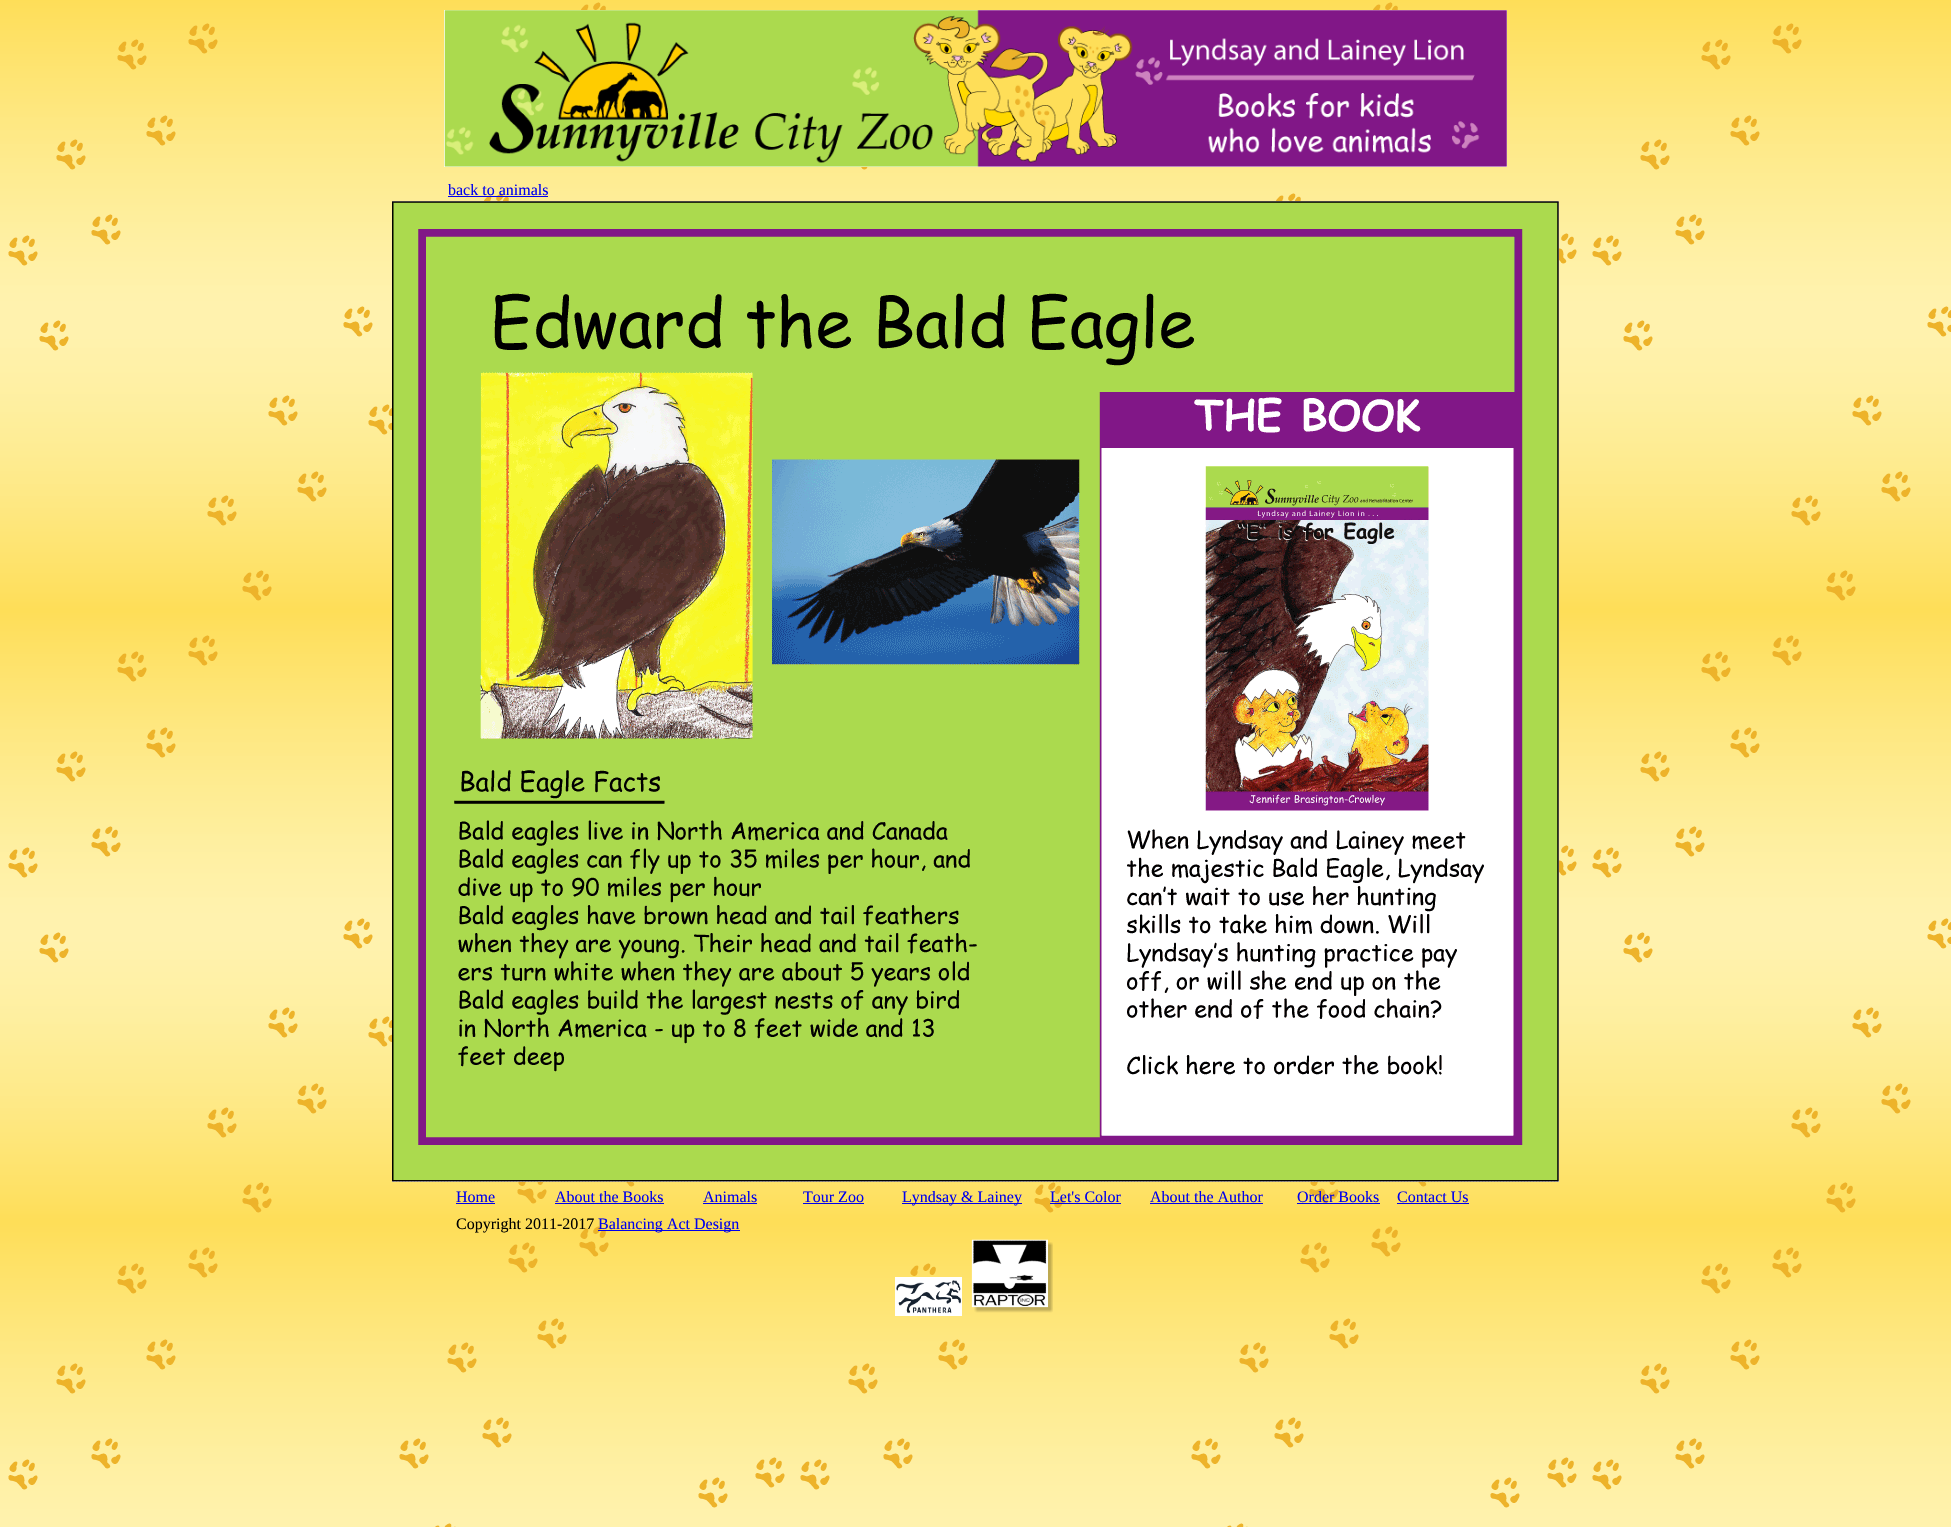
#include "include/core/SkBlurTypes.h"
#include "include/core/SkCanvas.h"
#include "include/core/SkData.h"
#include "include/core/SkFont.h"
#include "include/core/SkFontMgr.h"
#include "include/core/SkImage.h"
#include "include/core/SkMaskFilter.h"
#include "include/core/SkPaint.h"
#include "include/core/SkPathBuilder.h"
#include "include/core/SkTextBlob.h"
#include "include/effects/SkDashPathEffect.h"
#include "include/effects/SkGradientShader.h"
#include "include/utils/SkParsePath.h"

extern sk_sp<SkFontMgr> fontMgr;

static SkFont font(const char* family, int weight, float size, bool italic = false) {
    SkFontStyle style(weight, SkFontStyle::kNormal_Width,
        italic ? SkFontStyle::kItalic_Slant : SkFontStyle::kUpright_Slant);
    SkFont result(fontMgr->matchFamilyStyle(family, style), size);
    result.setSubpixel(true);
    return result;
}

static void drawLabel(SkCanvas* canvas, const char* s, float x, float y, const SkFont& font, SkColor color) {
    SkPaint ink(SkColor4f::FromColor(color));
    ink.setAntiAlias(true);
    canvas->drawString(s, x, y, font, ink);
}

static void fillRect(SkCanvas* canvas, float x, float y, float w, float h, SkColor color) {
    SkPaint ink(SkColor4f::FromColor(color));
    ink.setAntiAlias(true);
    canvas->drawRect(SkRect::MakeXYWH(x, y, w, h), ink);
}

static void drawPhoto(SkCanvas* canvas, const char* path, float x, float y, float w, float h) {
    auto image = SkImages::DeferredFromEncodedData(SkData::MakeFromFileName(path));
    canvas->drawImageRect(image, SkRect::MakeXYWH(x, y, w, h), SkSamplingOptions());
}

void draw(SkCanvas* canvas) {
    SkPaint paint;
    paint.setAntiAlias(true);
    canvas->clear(0xFFFFFFFF);
    drawPhoto(canvas, "assets/img1.png", 0, 0, 1951, 1527);
    drawPhoto(canvas, "assets/img2.png", 444, 10, 1063, 157);
    SkFont font1 = font("Liberation Serif", 400, 16);
    drawLabel(canvas, "back to animals", 448, 195, font1, 0xFF0000EE);
    fillRect(canvas, 448, 196, 100, 1, 0xFF0000EE);
    drawPhoto(canvas, "assets/img3.png", 392, 201, 1167, 981);
    drawLabel(canvas, "Home", 456, 1202, font1, 0xFF0000EE);
    fillRect(canvas, 456, 1203, 39, 1, 0xFF0000EE);
    drawLabel(canvas, "About the Books", 555, 1202, font1, 0xFF0000EE);
    fillRect(canvas, 555, 1203, 109, 1, 0xFF0000EE);
    drawLabel(canvas, "Animals", 703, 1202, font1, 0xFF0000EE);
    fillRect(canvas, 703, 1203, 54, 1, 0xFF0000EE);
    drawLabel(canvas, "Tour Zoo", 803, 1202, font1, 0xFF0000EE);
    fillRect(canvas, 803, 1203, 61, 1, 0xFF0000EE);
    fillRect(canvas, 902, 1203, 120, 1, 0xFF0000EE);
    drawLabel(canvas, "Lyndsay & Lainey", 902, 1202, font1, 0xFF0000EE);
    drawLabel(canvas, "Let's Color", 1050, 1202, font1, 0xFF0000EE);
    fillRect(canvas, 1050, 1203, 71, 1, 0xFF0000EE);
    drawLabel(canvas, "About the Author", 1150, 1202, font1, 0xFF0000EE);
    fillRect(canvas, 1150, 1203, 113, 1, 0xFF0000EE);
    drawLabel(canvas, "Order Books", 1297, 1202, font1, 0xFF0000EE);
    fillRect(canvas, 1297, 1203, 83, 1, 0xFF0000EE);
    drawLabel(canvas, "Contact Us", 1397, 1202, font1, 0xFF0000EE);
    fillRect(canvas, 1397, 1203, 72, 1, 0xFF0000EE);
    drawLabel(canvas, "Copyright 2011-2017", 456, 1229, font1, 0xFF000000);
    fillRect(canvas, 598, 1230, 142, 1, 0xFF0000EE);
    drawLabel(canvas, "Balancing Act Design", 598, 1229, font1, 0xFF0000EE);
    drawPhoto(canvas, "assets/img4.png", 895, 1277, 67, 39);
    drawPhoto(canvas, "assets/img5.png", 971, 1239, 82, 74);
}
